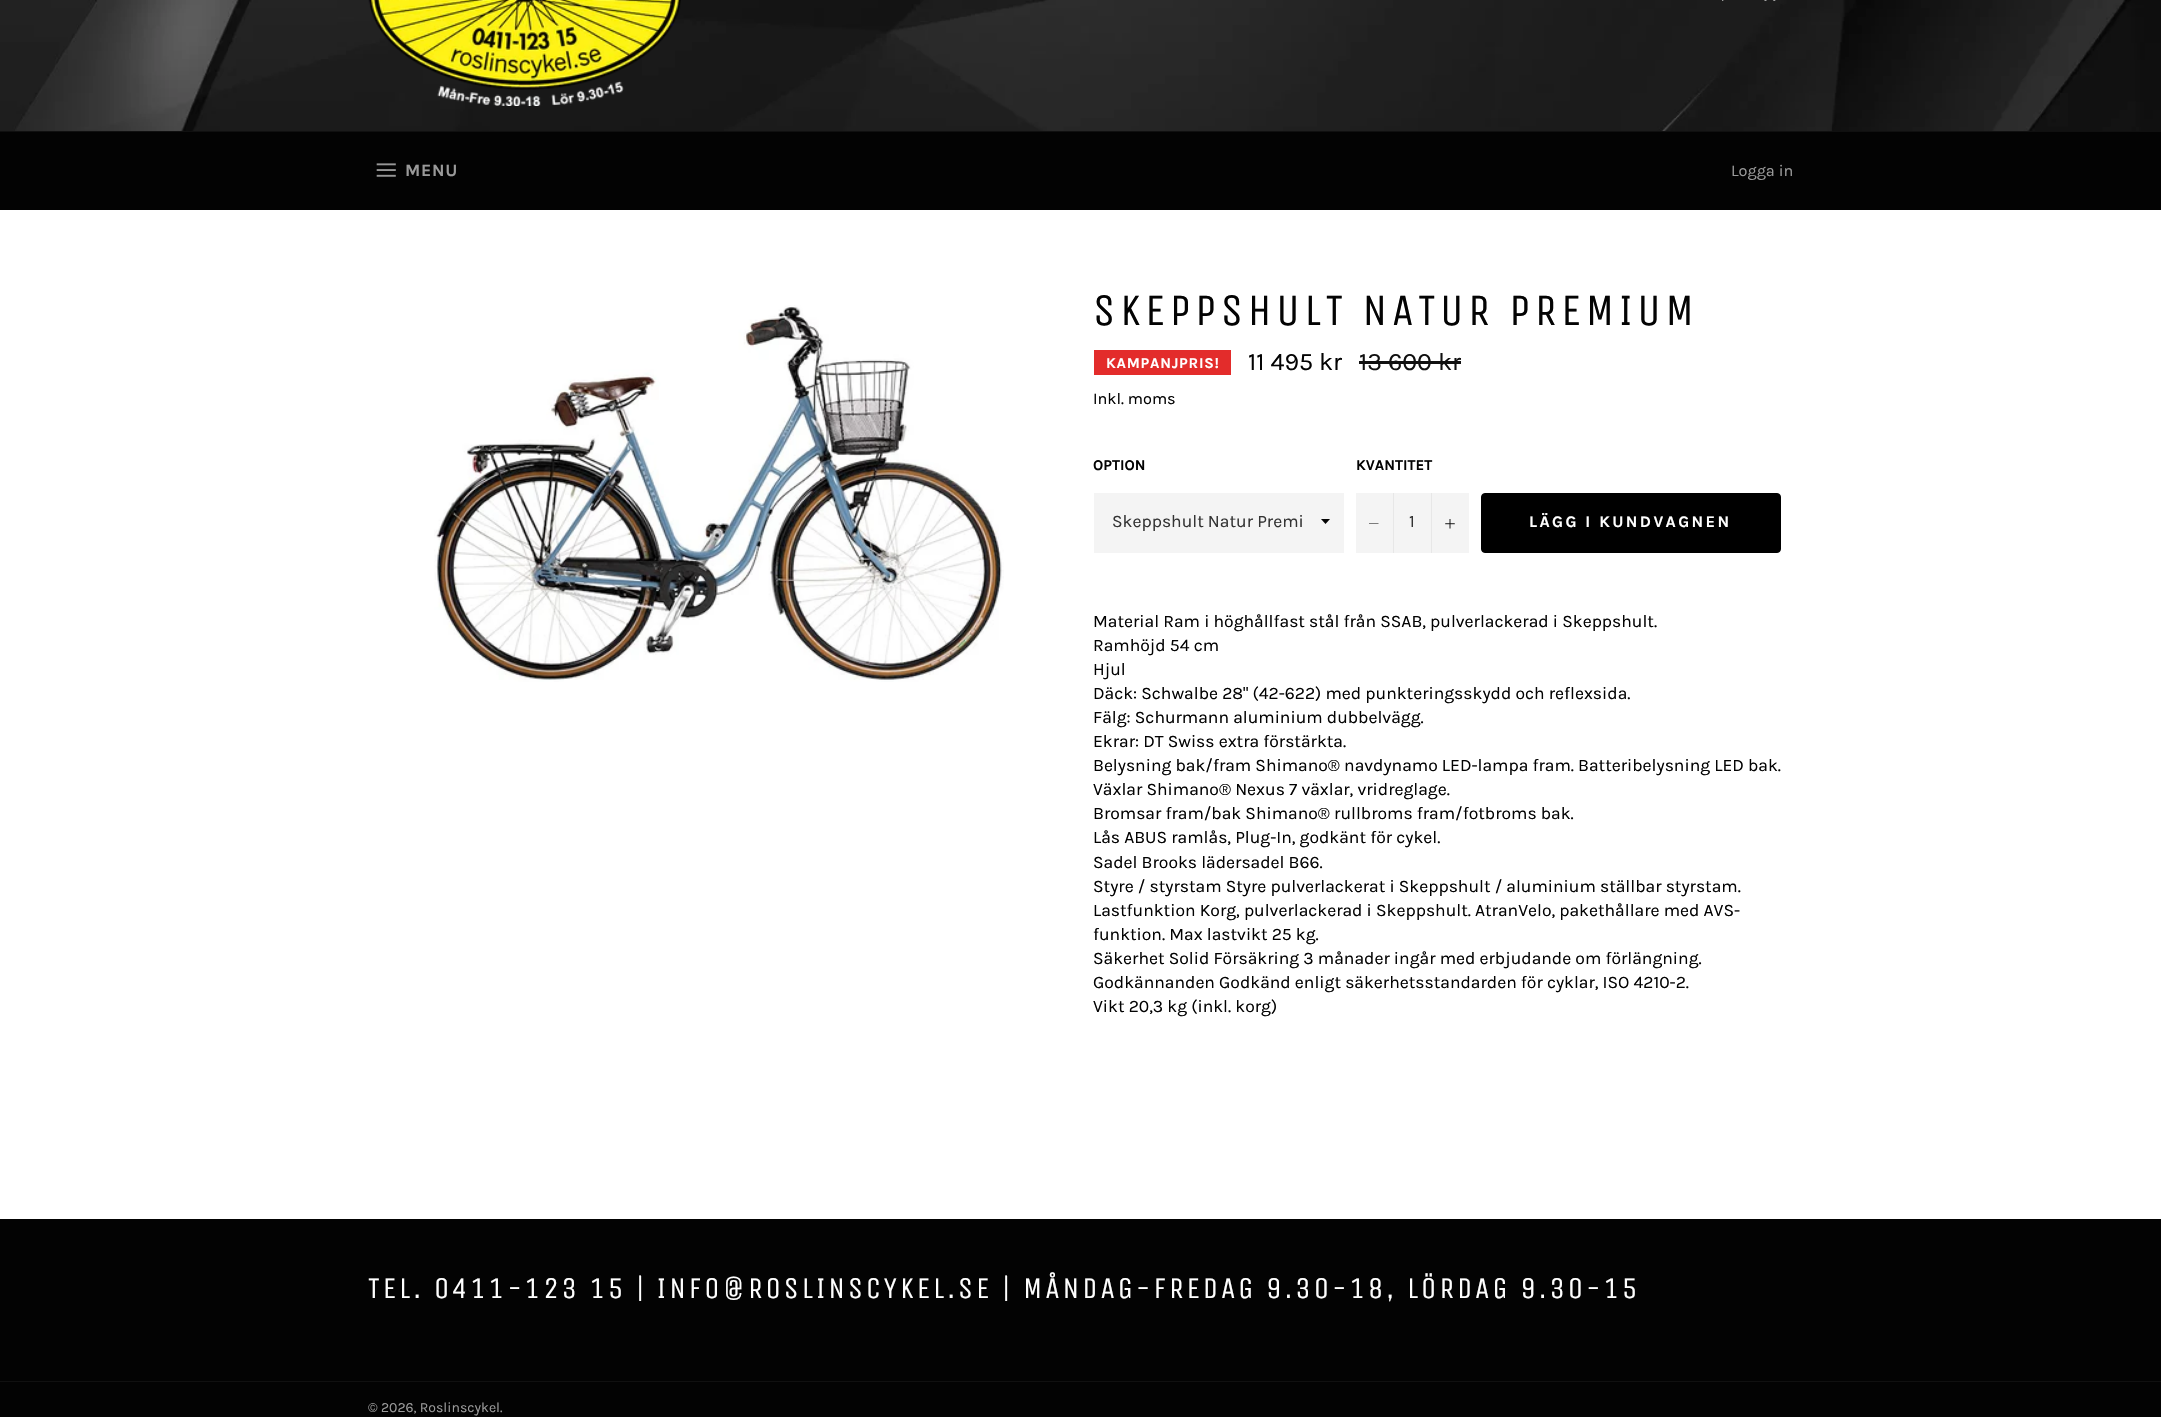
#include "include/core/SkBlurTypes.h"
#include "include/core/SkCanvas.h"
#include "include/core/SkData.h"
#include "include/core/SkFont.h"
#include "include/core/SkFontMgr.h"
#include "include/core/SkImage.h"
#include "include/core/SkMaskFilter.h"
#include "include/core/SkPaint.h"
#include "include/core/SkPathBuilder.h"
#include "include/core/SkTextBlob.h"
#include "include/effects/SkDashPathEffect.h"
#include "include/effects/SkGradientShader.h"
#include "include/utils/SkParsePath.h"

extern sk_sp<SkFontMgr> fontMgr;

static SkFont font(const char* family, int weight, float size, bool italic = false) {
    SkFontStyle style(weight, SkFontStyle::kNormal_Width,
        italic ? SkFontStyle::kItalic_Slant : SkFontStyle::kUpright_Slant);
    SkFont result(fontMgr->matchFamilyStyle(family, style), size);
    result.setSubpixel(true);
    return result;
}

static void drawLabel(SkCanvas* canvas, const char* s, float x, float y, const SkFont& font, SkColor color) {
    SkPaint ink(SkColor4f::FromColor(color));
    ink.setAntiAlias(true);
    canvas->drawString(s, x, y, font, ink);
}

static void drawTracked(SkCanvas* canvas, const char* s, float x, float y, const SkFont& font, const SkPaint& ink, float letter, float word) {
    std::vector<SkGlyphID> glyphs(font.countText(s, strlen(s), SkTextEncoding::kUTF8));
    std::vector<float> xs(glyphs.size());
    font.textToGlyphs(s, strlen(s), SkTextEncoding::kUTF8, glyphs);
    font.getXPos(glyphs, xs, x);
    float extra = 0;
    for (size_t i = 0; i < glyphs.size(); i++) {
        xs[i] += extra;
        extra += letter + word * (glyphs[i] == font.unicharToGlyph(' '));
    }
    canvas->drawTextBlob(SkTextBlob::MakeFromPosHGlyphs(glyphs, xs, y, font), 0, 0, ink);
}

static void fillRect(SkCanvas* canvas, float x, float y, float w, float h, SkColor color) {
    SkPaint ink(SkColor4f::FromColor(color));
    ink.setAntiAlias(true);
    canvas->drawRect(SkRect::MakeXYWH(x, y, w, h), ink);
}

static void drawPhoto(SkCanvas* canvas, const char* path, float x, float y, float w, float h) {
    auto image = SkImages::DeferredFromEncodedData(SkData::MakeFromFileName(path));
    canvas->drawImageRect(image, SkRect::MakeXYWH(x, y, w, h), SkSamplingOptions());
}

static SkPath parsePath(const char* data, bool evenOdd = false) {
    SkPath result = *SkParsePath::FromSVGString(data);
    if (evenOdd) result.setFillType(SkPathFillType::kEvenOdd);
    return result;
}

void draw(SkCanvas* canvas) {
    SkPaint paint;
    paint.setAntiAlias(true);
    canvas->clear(0xFFFFFFFF);
    drawPhoto(canvas, "assets/img1.png", 0, 0, 2161, 131);
    drawPhoto(canvas, "assets/img2.png", 368, 0, 313, 106);
    drawPhoto(canvas, "assets/img3.png", 1722, 0, 2, 1);
    drawPhoto(canvas, "assets/img4.png", 1764, 0, 12, 1);
    fillRect(canvas, 0, 132, 2161, 78, 0xFF030303);
    fillRect(canvas, 0, 131, 2161, 1, 0xFF101010);
    drawPhoto(canvas, "assets/img5.png", 376, 163, 20, 14);
    SkFont font1 = font("Karla", 700, 17.5f);
    paint.setColor(0xFF9A9A9A);
    drawTracked(canvas, "MENU", 405, 176, font1, paint, 0.75f, 0);
    SkFont font2 = font("Karla", 400, 16.25f);
    drawLabel(canvas, "Logga in", 1731, 176, font2, 0xFF9A9A9A);
    drawPhoto(canvas, "assets/img6.png", 434, 305, 570, 377);
    SkFont font3 = font("Unica One", 400, 45);
    paint.setColor(0xFF030303);
    drawTracked(canvas, "SKEPPSHULT NATUR PREMIUM", 1093, 325, font3, paint, 4.5f, 0);
    fillRect(canvas, 1094, 350, 137, 25, 0xFFE32C2B);
    SkFont font4 = font("Karla", 700, 15);
    paint.setColor(0xFFFFFFFF);
    drawTracked(canvas, "KAMPANJPRIS!", 1106, 368, font4, paint, 0.75f, 0);
    SkFont font5 = font("Karla", 400, 25);
    drawLabel(canvas, "11 495 kr", 1248, 370, font5, 0xFF030303);
    drawLabel(canvas, "13 600 kr", 1359, 370, font5, 0xFF101010);
    fillRect(canvas, 1359, 361, 102, 3, 0xFF101010);
    drawLabel(canvas, "Inkl. moms", 1093, 404, font2, 0xFF030303);
    drawLabel(canvas, "OPTION", 1093, 470, font4, 0xFF030303);
    fillRect(canvas, 1094, 493, 250, 60, 0xFFF4F4F4);
    paint.setColor(0xFF030303);
    canvas->drawPath(parsePath("M1321 519L1325.5 524L1330 519Z"), paint);
    SkFont font6 = font("Karla", 400, 17.5f);
    drawLabel(canvas, "Skeppshult Natur Premi", 1112, 527, font6, 0xFF333333);
    drawLabel(canvas, "KVANTITET", 1356, 470, font4, 0xFF030303);
    fillRect(canvas, 1356, 493, 113, 60, 0xFFF4F4F4);
    fillRect(canvas, 1393, 493, 1, 60, 0xFFE7E7E7);
    canvas->drawPath(parsePath("M1378.5 523.5V524H1369V523.5Z", true), paint);
    drawLabel(canvas, "1", 1409, 527, font6, 0xFF333333);
    fillRect(canvas, 1431, 493, 1, 60, 0xFFE7E7E7);
    drawPhoto(canvas, "assets/img7.png", 1445, 519, 10, 10);
    paint.setColor(0xFF000000);
    canvas->drawRoundRect(SkRect::MakeXYWH(1481.5f, 493.5f, 299, 59), 3.5f, 3.5f, paint);
    paint.setStroke(true);
    paint.setStrokeWidth(1);
    canvas->drawRoundRect(SkRect::MakeXYWH(1481.5f, 493.5f, 299, 59), 3.5f, 3.5f, paint);
    SkFont font7 = font("Karla", 700, 16.25f);
    paint.setStroke(false);
    paint.setColor(0xFFFFFFFF);
    drawTracked(canvas, "LÄGG I KUNDVAGNEN", 1529, 527, font7, paint, 2.4f, 0);
    drawLabel(canvas, "Material Ram i höghållfast stål från SSAB, pulverlackerad i Skeppshult.", 1093, 627, font6, 0xFF030303);
    drawLabel(canvas, "Ramhöjd 54 cm", 1093, 651, font6, 0xFF030303);
    drawLabel(canvas, "Hjul", 1093, 675, font6, 0xFF030303);
    drawLabel(canvas, "Däck: Schwalbe 28\" (42-622) med punkteringsskydd och reflexsida.", 1093, 699, font6, 0xFF030303);
    drawLabel(canvas, "Fälg: Schurmann aluminium dubbelvägg.", 1093, 723, font6, 0xFF030303);
    drawLabel(canvas, "Ekrar: DT Swiss extra förstärkta.", 1093, 747, font6, 0xFF030303);
    drawLabel(canvas, "Belysning bak/fram Shimano® navdynamo LED-lampa fram. Batteribelysning LED bak.", 1093, 771, font6, 0xFF030303);
    drawLabel(canvas, "Växlar Shimano® Nexus 7 växlar, vridreglage.", 1093, 795, font6, 0xFF030303);
    drawLabel(canvas, "Bromsar fram/bak Shimano® rullbroms fram/fotbroms bak.", 1093, 819, font6, 0xFF030303);
    drawLabel(canvas, "Lås ABUS ramlås, Plug-In, godkänt för cykel.", 1093, 843, font6, 0xFF030303);
    drawLabel(canvas, "Sadel Brooks lädersadel B66.", 1093, 868, font6, 0xFF030303);
    drawLabel(canvas, "Styre / styrstam Styre pulverlackerat i Skeppshult / aluminium ställbar styrstam.", 1093, 892, font6, 0xFF030303);
    drawLabel(canvas, "Lastfunktion Korg, pulverlackerad i Skeppshult. AtranVelo, pakethållare med AVS-", 1093, 916, font6, 0xFF030303);
    drawLabel(canvas, "funktion. Max lastvikt 25 kg.", 1093, 940, font6, 0xFF030303);
    drawLabel(canvas, "Säkerhet Solid Försäkring 3 månader ingår med erbjudande om förlängning.", 1093, 964, font6, 0xFF030303);
    drawLabel(canvas, "Godkännanden Godkänd enligt säkerhetsstandarden för cyklar, ISO 4210-2.", 1093, 988, font6, 0xFF030303);
    drawLabel(canvas, "Vikt 20,3 kg (inkl. korg)", 1093, 1012, font6, 0xFF030303);
    fillRect(canvas, 0, 1219, 2161, 198, 0xFF030303);
    SkFont font8 = font("Unica One", 400, 30);
    drawTracked(canvas, "TEL. 0411-123 15 | INFO@ROSLINSCYKEL.SE | MÅNDAG-FREDAG 9.30-18, LÖRDAG 9.30-15", 368, 1298, font8, paint, 3, 0);
    fillRect(canvas, 0, 1381, 2161, 1, 0xFF101010);
    SkFont font9 = font("Karla", 400, 14);
    drawLabel(canvas, "© 2026, Roslinscykel.", 368, 1412, font9, 0xFF9A9A9A);
}
